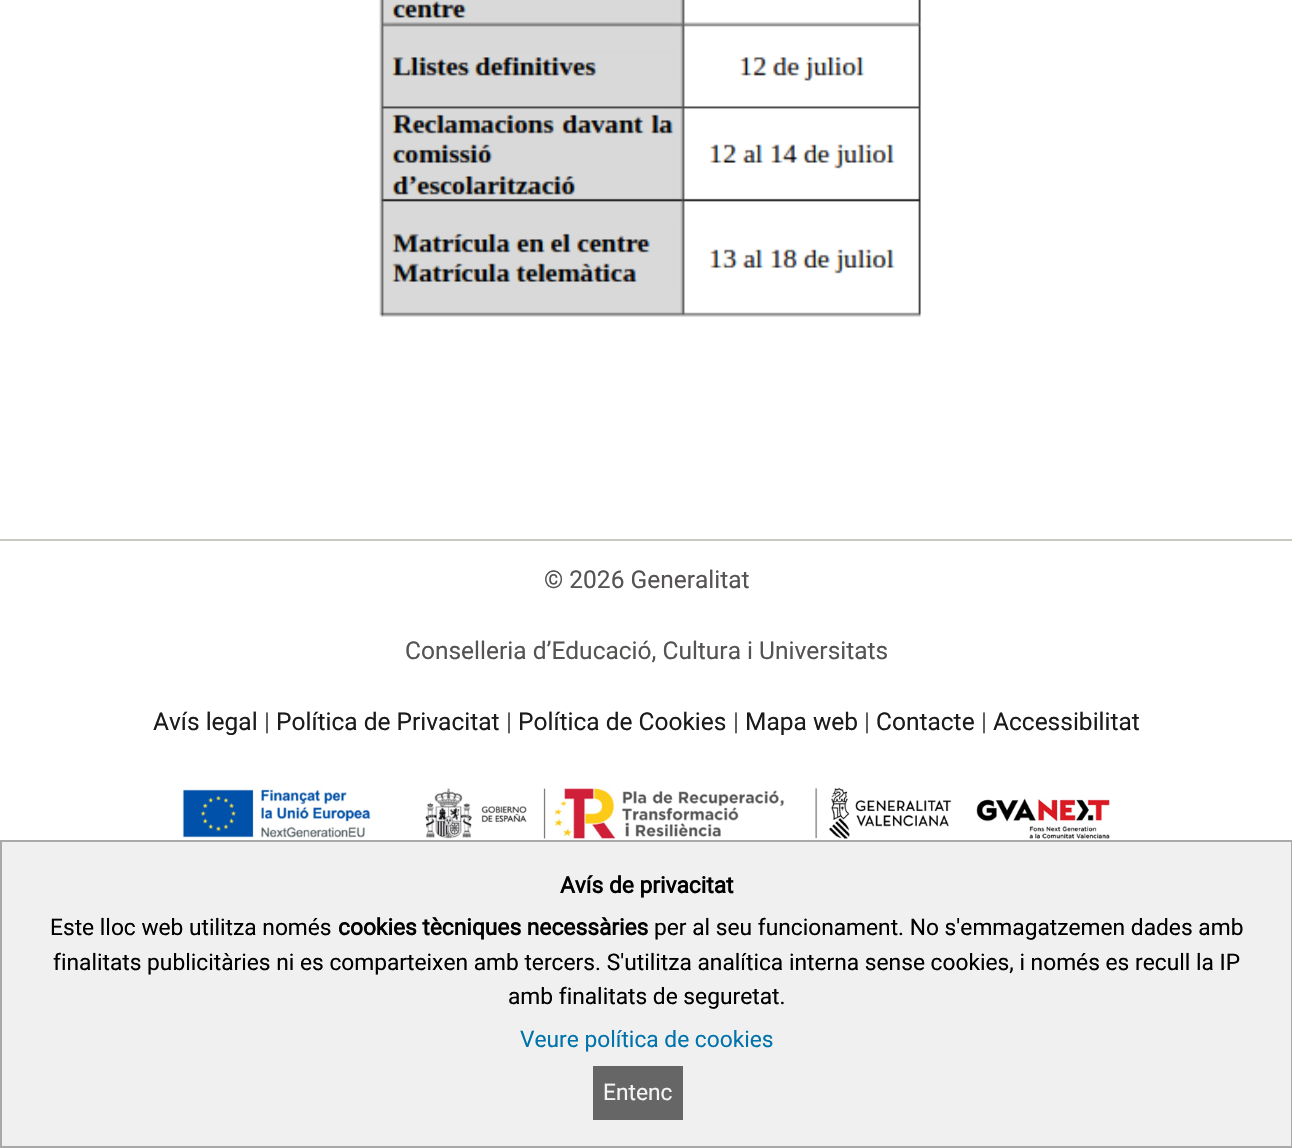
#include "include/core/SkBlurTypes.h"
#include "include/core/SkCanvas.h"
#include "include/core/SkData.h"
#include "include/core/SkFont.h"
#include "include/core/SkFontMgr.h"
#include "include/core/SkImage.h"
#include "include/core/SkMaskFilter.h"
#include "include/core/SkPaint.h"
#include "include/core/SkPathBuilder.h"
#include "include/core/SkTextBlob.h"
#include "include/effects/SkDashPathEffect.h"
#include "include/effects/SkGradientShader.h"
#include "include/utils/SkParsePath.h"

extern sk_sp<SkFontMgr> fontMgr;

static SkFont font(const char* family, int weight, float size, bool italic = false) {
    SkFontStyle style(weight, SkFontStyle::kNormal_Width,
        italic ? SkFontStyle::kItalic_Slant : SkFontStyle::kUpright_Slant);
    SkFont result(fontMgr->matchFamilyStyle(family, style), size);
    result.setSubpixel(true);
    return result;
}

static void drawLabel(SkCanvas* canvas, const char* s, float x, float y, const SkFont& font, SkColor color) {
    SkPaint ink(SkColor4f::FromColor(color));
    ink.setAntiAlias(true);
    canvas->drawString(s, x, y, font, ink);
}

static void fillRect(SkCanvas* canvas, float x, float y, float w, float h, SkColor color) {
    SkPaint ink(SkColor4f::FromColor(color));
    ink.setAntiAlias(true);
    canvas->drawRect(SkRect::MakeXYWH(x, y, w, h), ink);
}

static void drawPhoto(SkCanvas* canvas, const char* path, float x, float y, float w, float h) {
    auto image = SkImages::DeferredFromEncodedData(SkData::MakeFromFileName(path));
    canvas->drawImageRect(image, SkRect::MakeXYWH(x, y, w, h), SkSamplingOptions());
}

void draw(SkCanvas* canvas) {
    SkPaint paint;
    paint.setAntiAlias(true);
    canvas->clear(0xFFFFFFFF);
    drawPhoto(canvas, "assets/img1.png", 379, 0, 542, 317);
    fillRect(canvas, 0, 539, 1292, 2, 0xFFC9C9C4);
    SkFont font1 = font("Roboto", 400, 24.5f);
    drawLabel(canvas, "© 2026 Generalitat", 544, 588, font1, 0xFF565353);
    drawLabel(canvas, "Conselleria d’Educació, Cultura i Universitats", 405, 659, font1, 0xFF565353);
    drawLabel(canvas, "Avís legal", 153, 730, font1, 0xFF1B1B1B);
    drawLabel(canvas, "|", 264, 730, font1, 0xFF565353);
    drawLabel(canvas, "Política de Privacitat", 276, 730, font1, 0xFF1B1B1B);
    drawLabel(canvas, "|", 506, 730, font1, 0xFF565353);
    drawLabel(canvas, "Política de Cookies", 518, 730, font1, 0xFF1B1B1B);
    drawLabel(canvas, "|", 733, 730, font1, 0xFF565353);
    drawLabel(canvas, "Mapa web", 745, 730, font1, 0xFF1B1B1B);
    drawLabel(canvas, "|", 864, 730, font1, 0xFF565353);
    drawLabel(canvas, "Contacte", 876, 730, font1, 0xFF1B1B1B);
    drawLabel(canvas, "|", 981, 730, font1, 0xFF565353);
    drawLabel(canvas, "Accessibilitat", 993, 730, font1, 0xFF1B1B1B);
    drawPhoto(canvas, "assets/img2.png", 180, 786, 930, 53);
    paint.setColor(0xFFF0F0F0);
    canvas->drawRect(SkRect::MakeXYWH(1, 841, 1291, 306), paint);
    paint.setStroke(true);
    paint.setStrokeWidth(2);
    paint.setColor(0xFFA9A9A9);
    canvas->drawRect(SkRect::MakeXYWH(1, 841, 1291, 306), paint);
    SkFont font2 = font("Roboto", 700, 22.75f);
    drawLabel(canvas, "Avís de privacitat", 560, 893, font2, 0xFF000000);
    SkFont font3 = font("Roboto", 400, 22.75f);
    drawLabel(canvas, "Este lloc web utilitza només", 50, 935, font3, 0xFF000000);
    drawLabel(canvas, "cookies tècniques necessàries", 338, 935, font2, 0xFF000000);
    drawLabel(canvas, "per al seu funcionament. No s'emmagatzemen dades amb", 654, 935, font3, 0xFF000000);
    drawLabel(canvas, "finalitats publicitàries ni es comparteixen amb tercers. S'utilitza analítica interna sense cookies, i només es recull la IP", 53, 970, font3, 0xFF000000);
    drawLabel(canvas, "amb finalitats de seguretat.", 508, 1004, font3, 0xFF000000);
    drawLabel(canvas, "Veure política de cookies", 520, 1047, font3, 0xFF0073AA);
    fillRect(canvas, 593, 1066, 90, 54, 0xFF666666);
    drawLabel(canvas, "Entenc", 603, 1100, font3, 0xFFF5F5F5);
}
